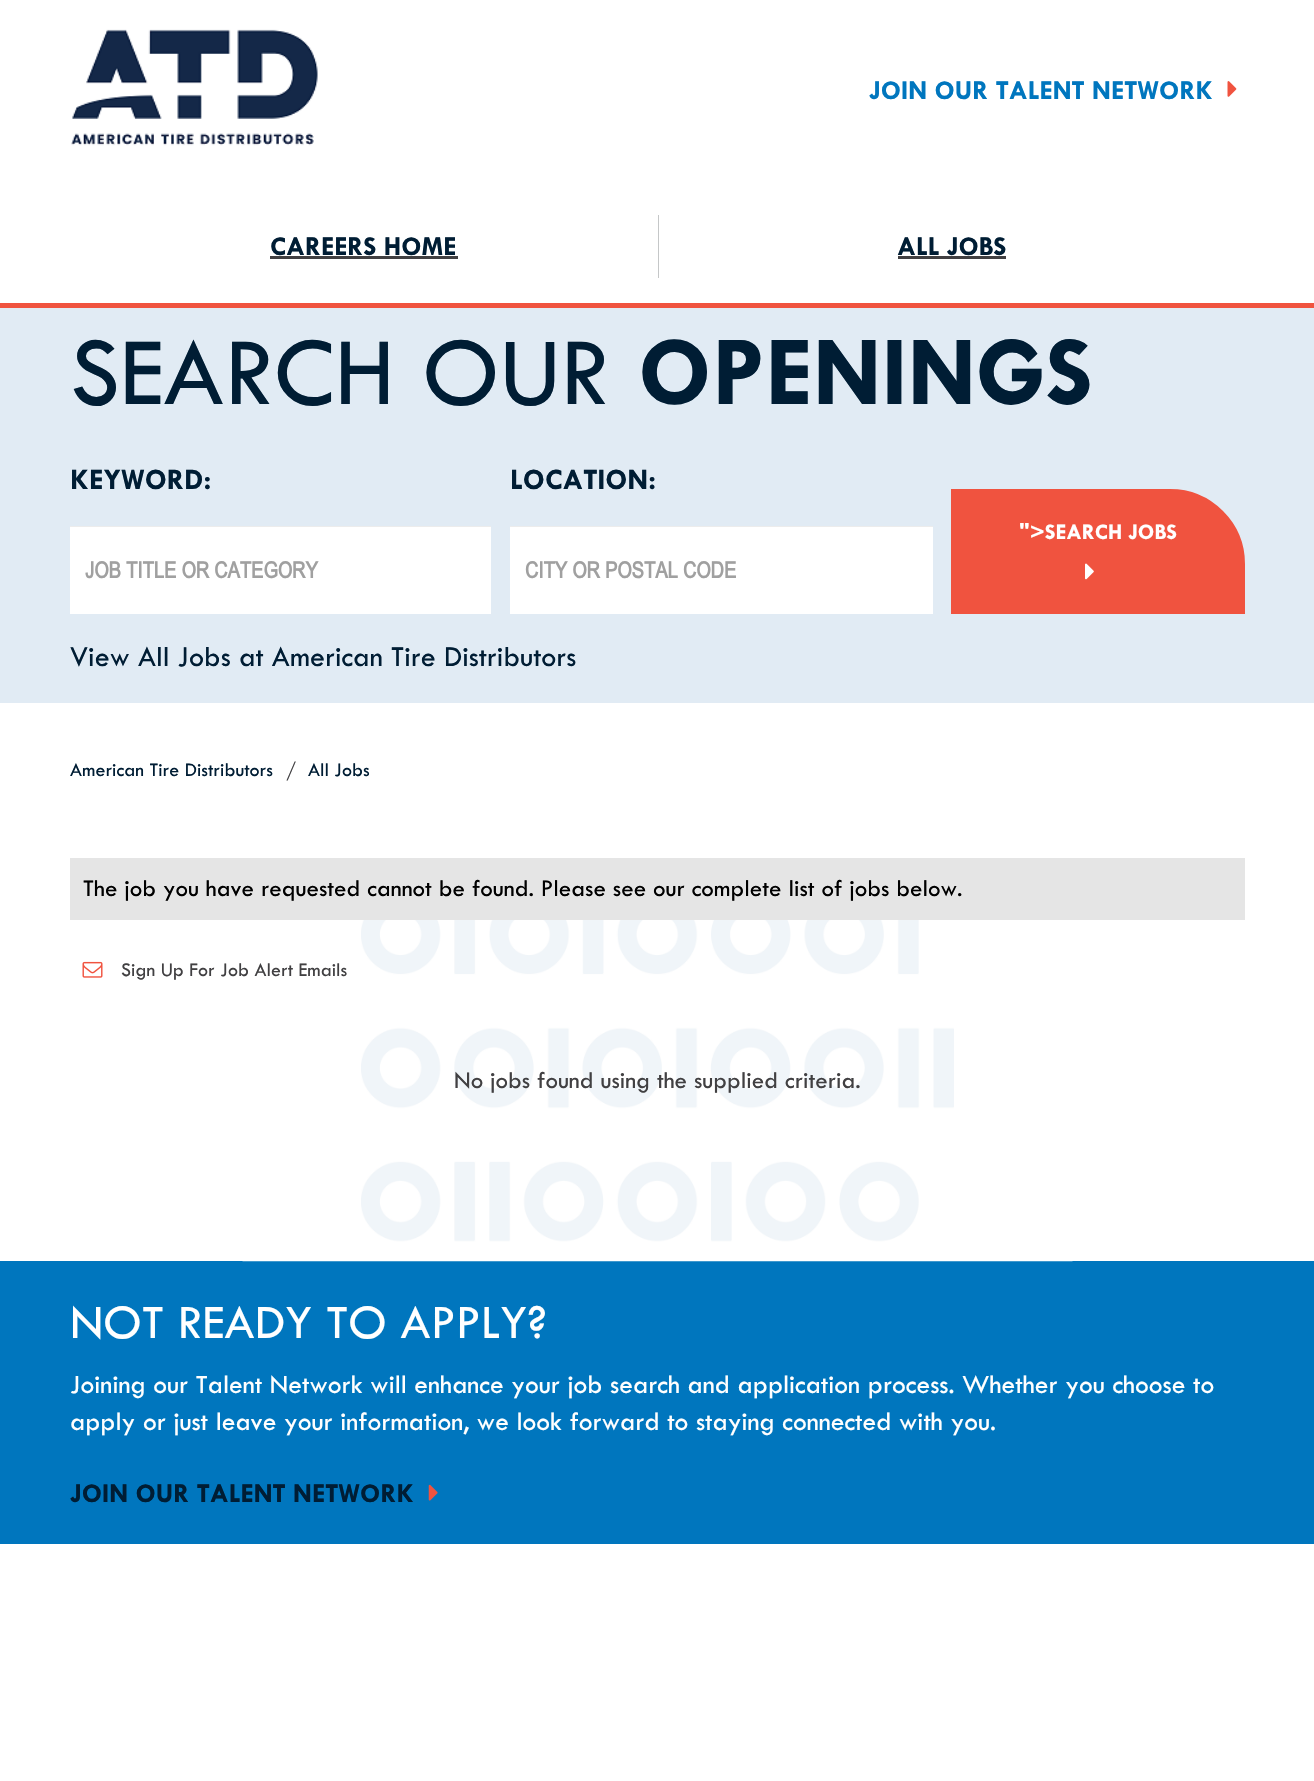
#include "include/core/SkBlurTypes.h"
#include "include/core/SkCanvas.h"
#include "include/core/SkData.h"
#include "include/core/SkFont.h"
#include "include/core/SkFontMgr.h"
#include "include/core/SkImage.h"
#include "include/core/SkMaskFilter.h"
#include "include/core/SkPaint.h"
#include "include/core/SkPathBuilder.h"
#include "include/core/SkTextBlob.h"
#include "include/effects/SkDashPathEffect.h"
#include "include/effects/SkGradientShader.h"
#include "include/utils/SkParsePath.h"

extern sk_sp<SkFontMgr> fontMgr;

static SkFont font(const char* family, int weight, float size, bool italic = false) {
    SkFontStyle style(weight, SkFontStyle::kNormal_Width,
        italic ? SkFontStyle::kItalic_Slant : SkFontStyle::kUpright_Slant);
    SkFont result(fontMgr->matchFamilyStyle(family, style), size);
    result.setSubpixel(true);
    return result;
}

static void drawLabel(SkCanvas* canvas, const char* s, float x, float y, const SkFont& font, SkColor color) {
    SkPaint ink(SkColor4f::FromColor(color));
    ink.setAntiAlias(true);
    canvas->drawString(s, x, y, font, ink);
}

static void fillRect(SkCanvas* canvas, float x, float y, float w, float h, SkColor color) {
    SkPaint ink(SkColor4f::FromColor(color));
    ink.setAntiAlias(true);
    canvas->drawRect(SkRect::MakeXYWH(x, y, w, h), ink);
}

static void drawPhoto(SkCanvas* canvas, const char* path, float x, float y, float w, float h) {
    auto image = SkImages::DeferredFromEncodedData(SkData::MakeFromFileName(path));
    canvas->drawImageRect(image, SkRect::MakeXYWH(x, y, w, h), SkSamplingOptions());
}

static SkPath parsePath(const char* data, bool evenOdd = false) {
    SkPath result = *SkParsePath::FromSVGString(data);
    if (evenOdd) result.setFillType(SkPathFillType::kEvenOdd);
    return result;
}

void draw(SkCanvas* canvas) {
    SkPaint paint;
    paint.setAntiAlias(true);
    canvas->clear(0xFFFFFFFF);
    drawPhoto(canvas, "assets/img1.png", 71, 29, 247, 117);
    SkFont font1 = font("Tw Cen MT", 700, 27.5f);
    drawLabel(canvas, "JOIN OUR TALENT NETWORK", 869, 99, font1, 0xFF0076BE);
    drawPhoto(canvas, "assets/img2.png", 1227, 81, 10, 16);
    fillRect(canvas, 0, 303, 1314, 5, 0xFFF0533F);
    drawLabel(canvas, "CAREERS HOME", 270, 255, font1, 0xFF001D34);
    fillRect(canvas, 270, 256, 188, 3, 0xFF414042);
    fillRect(canvas, 658, 215, 1, 63, 0xFFC5C7C8);
    drawLabel(canvas, "ALL JOBS", 897, 255, font1, 0xFF001D34);
    fillRect(canvas, 898, 256, 108, 3, 0xFF414042);
    fillRect(canvas, 0, 308, 1314, 395, 0xFFE1EBF4);
    SkFont font2 = font("Tw Cen MT", 400, 100);
    drawLabel(canvas, "SEARCH OUR", 70, 404, font2, 0xFF001D34);
    SkFont font3 = font("Tw Cen MT", 700, 100);
    drawLabel(canvas, "OPENINGS", 638, 404, font3, 0xFF001D34);
    SkFont font4 = font("Tw Cen MT", 700, 30);
    drawLabel(canvas, "KEYWORD:", 70, 489, font4, 0xFF001D34);
    fillRect(canvas, 70, 527, 421, 87, 0xFFFFFFFF);
    fillRect(canvas, 70, 526, 421, 1, 0xFFECECEC);
    SkFont font5 = font("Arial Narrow", 700, 22.5f);
    drawLabel(canvas, "JOB TITLE OR CATEGORY", 85, 578, font5, 0xFFA0A0A0);
    drawLabel(canvas, "LOCATION:", 510, 489, font4, 0xFF001D34);
    fillRect(canvas, 510, 527, 423, 87, 0xFFFFFFFF);
    fillRect(canvas, 510, 526, 423, 1, 0xFFECECEC);
    drawLabel(canvas, "CITY OR POSTAL CODE", 525, 578, font5, 0xFFA0A0A0);
    paint.setColor(0xFFF0533F);
    canvas->drawPath(parsePath("M953.5 491.5H1170C1210 491.5 1242.5 524 1242.5 564V611.5H953.5Z"), paint);
    paint.setStroke(true);
    paint.setStrokeWidth(5);
    canvas->drawPath(parsePath("M953.5 491.5H1170C1210 491.5 1242.5 524 1242.5 564V611.5H953.5Z"), paint);
    SkFont font6 = font("Tw Cen MT", 700, 22.5f);
    drawLabel(canvas, "\">SEARCH JOBS", 1019, 539, font6, 0xFFFFFFFF);
    drawPhoto(canvas, "assets/img3.png", 1085, 563, 9, 17);
    SkFont font7 = font("Tw Cen MT", 400, 30);
    drawLabel(canvas, "View All Jobs at American Tire Distributors", 70, 666, font7, 0xFF001D34);
    fillRect(canvas, 0, 1261, 1314, 283, 0xFF0076BE);
    drawPhoto(canvas, "assets/img4.png", 242, 703, 831, 559);
    SkFont font8 = font("Tw Cen MT", 400, 20);
    drawLabel(canvas, "American Tire Distributors", 70, 776, font8, 0xFF001D34);
    drawLabel(canvas, "/", 286, 776, font8, 0xFF414042);
    drawLabel(canvas, "All Jobs", 308, 776, font8, 0xFF001D34);
    fillRect(canvas, 70, 858, 1175, 62, 0xFFE5E5E5);
    SkFont font9 = font("Tw Cen MT", 400, 25);
    drawLabel(canvas, "The job you have requested cannot be found. Please see our complete list of jobs below.", 83, 896, font9, 0xFF000000);
    drawPhoto(canvas, "assets/img5.png", 82, 961, 21, 17);
    drawLabel(canvas, "Sign Up For Job Alert Emails", 121, 976, font8, 0xFF414042);
    drawLabel(canvas, "No jobs found using the supplied criteria.", 454, 1088, font9, 0xFF414042);
    SkFont font10 = font("Tw Cen MT", 400, 50);
    drawLabel(canvas, "NOT READY TO APPLY?", 70, 1338, font10, 0xFFFFFFFF);
    SkFont font11 = font("Tw Cen MT", 400, 27.5f);
    drawLabel(canvas, "Joining our Talent Network will enhance your job search and application process. Whether you choose to", 70, 1393, font11, 0xFFFFFFFF);
    drawLabel(canvas, "apply or just leave your information, we look forward to staying connected with you.", 70, 1430, font11, 0xFFFFFFFF);
    drawLabel(canvas, "JOIN OUR TALENT NETWORK", 70, 1502, font1, 0xFF001D34);
    drawPhoto(canvas, "assets/img6.png", 428, 1484, 10, 17);
}
